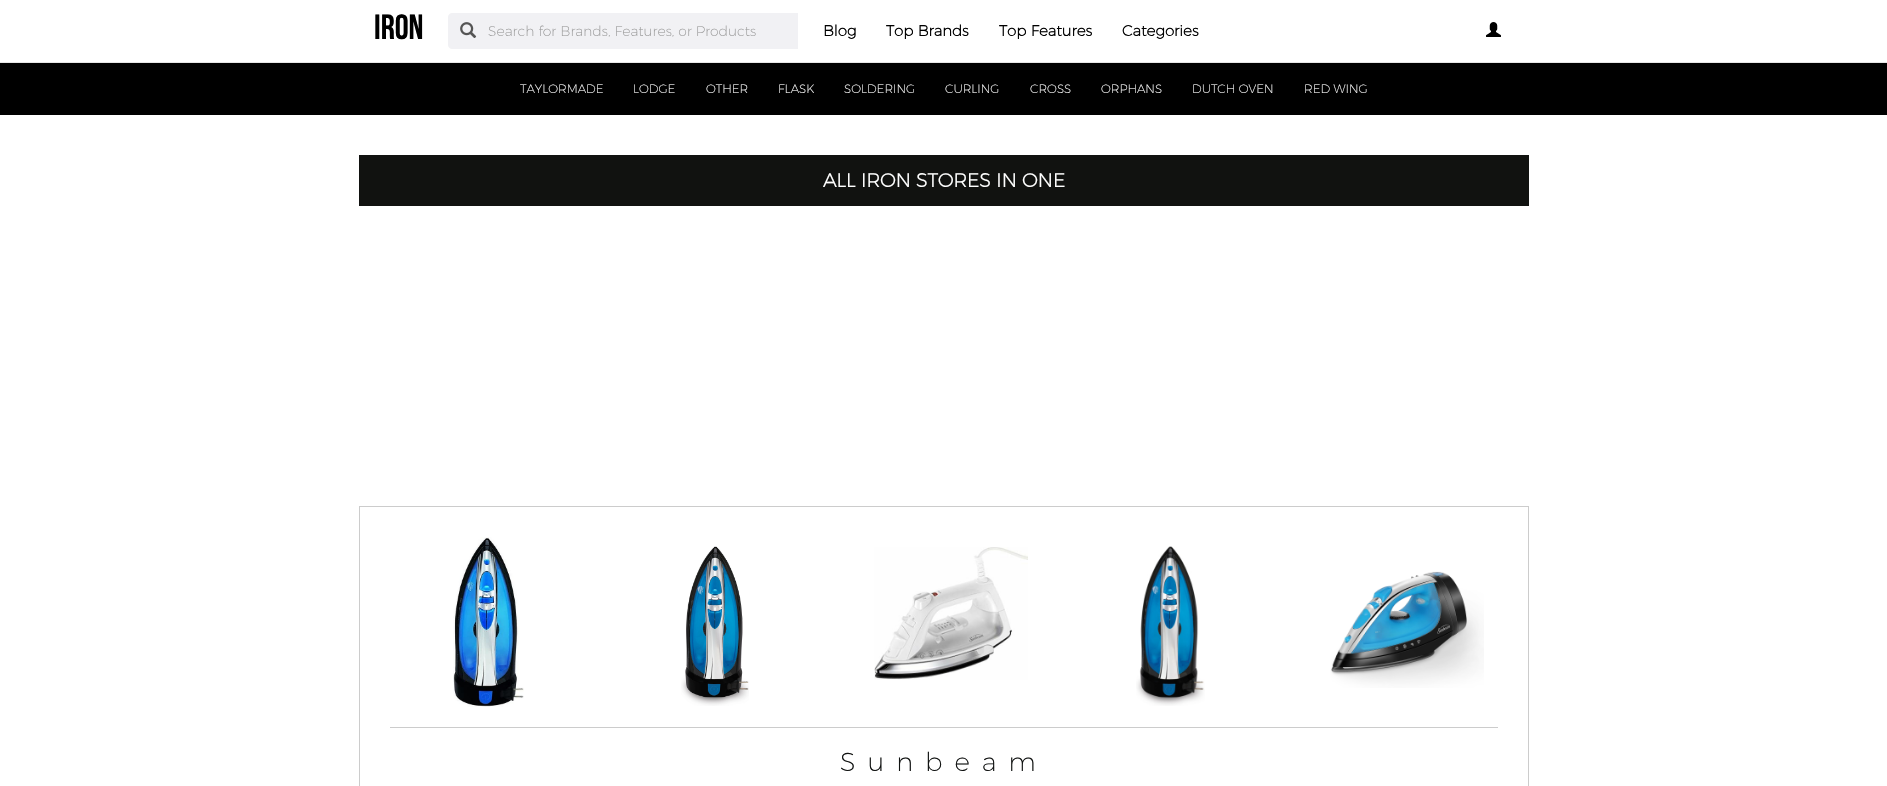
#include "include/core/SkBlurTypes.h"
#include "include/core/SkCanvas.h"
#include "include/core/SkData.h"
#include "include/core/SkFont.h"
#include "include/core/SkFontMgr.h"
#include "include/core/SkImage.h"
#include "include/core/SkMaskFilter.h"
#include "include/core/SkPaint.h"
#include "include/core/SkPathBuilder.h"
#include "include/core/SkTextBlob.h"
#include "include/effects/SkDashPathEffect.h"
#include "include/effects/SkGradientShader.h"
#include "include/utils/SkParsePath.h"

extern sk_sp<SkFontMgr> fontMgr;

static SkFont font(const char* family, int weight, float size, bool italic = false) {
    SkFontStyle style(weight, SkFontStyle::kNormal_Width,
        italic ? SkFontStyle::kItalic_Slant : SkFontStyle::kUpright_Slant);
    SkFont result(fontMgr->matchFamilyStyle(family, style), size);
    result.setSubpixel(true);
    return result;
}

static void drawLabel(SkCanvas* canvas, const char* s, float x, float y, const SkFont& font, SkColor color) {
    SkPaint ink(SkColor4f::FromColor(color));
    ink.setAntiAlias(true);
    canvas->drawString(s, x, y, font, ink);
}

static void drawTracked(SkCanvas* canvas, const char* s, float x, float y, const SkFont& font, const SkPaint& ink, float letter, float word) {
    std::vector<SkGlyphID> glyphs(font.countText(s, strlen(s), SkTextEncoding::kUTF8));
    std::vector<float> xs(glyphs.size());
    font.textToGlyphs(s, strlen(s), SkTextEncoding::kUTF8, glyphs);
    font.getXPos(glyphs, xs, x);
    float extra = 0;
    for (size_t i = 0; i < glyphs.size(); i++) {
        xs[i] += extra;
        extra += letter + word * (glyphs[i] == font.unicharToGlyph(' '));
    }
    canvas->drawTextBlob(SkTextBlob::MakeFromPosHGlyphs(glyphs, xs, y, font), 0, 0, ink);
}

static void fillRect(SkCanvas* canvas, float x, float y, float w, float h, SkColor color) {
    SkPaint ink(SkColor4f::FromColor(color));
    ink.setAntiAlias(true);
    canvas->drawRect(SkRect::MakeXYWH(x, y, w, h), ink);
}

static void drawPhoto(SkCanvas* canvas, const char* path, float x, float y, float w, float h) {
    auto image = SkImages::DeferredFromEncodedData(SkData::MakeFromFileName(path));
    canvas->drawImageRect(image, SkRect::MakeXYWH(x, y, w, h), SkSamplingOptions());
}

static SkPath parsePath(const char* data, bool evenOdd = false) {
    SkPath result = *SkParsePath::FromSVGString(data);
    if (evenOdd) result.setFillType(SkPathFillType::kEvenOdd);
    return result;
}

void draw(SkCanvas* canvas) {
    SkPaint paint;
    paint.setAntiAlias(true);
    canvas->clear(0xFFFFFFFF);
    fillRect(canvas, 0, 62, 1887, 1, 0xFFE7E7E7);
    SkFont font1 = font("Bebas Neue", 700, 35);
    drawLabel(canvas, "iron", 374, 39, font1, 0xFF000000);
    paint.setColor(0xFFF1F1F4);
    canvas->drawPath(parsePath("M452 13H488V49H452C450 49 448 47 448 45V17C448 15 450 13 452 13Z"), paint);
    drawPhoto(canvas, "assets/img1.png", 460, 22, 17, 16);
    fillRect(canvas, 488, 13, 310, 36, 0xFFF1F1F4);
    SkFont font2 = font("Montserrat", 200, 14);
    drawLabel(canvas, "Search for Brands, Features, or Products", 488, 36, font2, 0xFF999999);
    SkFont font3 = font("Montserrat", 700, 15);
    drawLabel(canvas, "Blog", 823, 36, font3, 0xFF000000);
    drawLabel(canvas, "Top Brands", 886, 36, font3, 0xFF000000);
    drawLabel(canvas, "Top Features", 999, 36, font3, 0xFF000000);
    drawLabel(canvas, "Categories", 1122, 36, font3, 0xFF000000);
    drawPhoto(canvas, "assets/img2.png", 1486, 22, 15, 15);
    fillRect(canvas, 0, 63, 1887, 52, 0xFF000000);
    SkFont font4 = font("Montserrat", 200, 12);
    drawLabel(canvas, "TAYLORMADE", 520, 93, font4, 0xFFFFFFFF);
    drawLabel(canvas, "LODGE", 633, 93, font4, 0xFFFFFFFF);
    drawLabel(canvas, "OTHER", 706, 93, font4, 0xFFFFFFFF);
    drawLabel(canvas, "FLASK", 778, 93, font4, 0xFFFFFFFF);
    drawLabel(canvas, "SOLDERING", 844, 93, font4, 0xFFFFFFFF);
    drawLabel(canvas, "CURLING", 945, 93, font4, 0xFFFFFFFF);
    drawLabel(canvas, "CROSS", 1030, 93, font4, 0xFFFFFFFF);
    drawLabel(canvas, "ORPHANS", 1101, 93, font4, 0xFFFFFFFF);
    drawLabel(canvas, "DUTCH OVEN", 1192, 93, font4, 0xFFFFFFFF);
    drawLabel(canvas, "RED WING", 1304, 93, font4, 0xFFFFFFFF);
    fillRect(canvas, 359, 155, 1170, 51, 0xFF111210);
    SkFont font5 = font("Montserrat", 700, 19);
    drawLabel(canvas, "ALL IRON STORES IN ONE", 823, 187, font5, 0xFFFFFFFF);
    paint.setStroke(true);
    paint.setStrokeWidth(1);
    paint.setColor(0xFFCCCCCC);
    canvas->drawRect(SkRect::MakeXYWH(359.5f, 506.5f, 1169, 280), paint);
    drawPhoto(canvas, "assets/img3.png", 453, 537, 71, 170);
    drawPhoto(canvas, "assets/img4.png", 681, 546, 68, 160);
    drawPhoto(canvas, "assets/img5.png", 874, 547, 154, 133);
    drawPhoto(canvas, "assets/img6.png", 1136, 546, 69, 160);
    drawPhoto(canvas, "assets/img7.png", 1330, 571, 154, 117);
    fillRect(canvas, 390, 727, 1108, 1, 0xFFCCCCCC);
    SkFont font6 = font("Montserrat", 200, 26);
    paint.setStroke(false);
    paint.setColor(0xFF101211);
    drawTracked(canvas, "Sunbeam", 840, 771, font6, paint, 12, 0);
}
